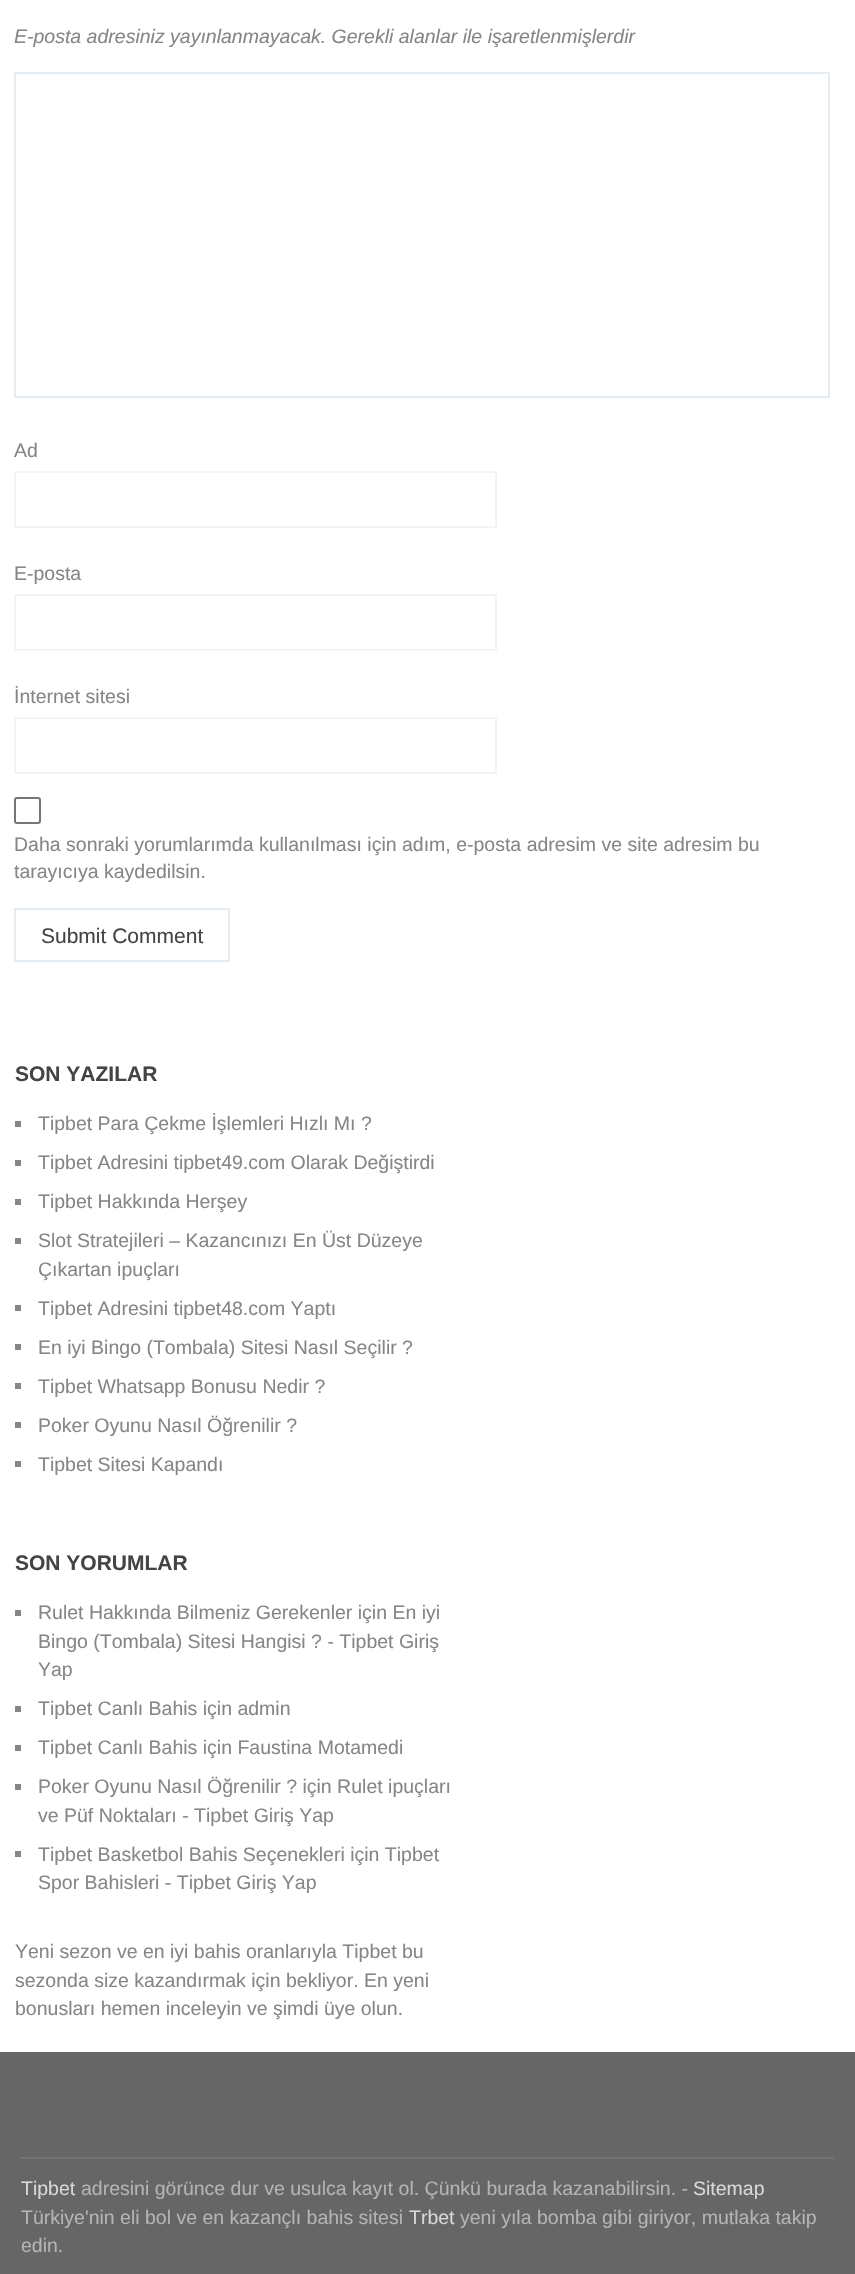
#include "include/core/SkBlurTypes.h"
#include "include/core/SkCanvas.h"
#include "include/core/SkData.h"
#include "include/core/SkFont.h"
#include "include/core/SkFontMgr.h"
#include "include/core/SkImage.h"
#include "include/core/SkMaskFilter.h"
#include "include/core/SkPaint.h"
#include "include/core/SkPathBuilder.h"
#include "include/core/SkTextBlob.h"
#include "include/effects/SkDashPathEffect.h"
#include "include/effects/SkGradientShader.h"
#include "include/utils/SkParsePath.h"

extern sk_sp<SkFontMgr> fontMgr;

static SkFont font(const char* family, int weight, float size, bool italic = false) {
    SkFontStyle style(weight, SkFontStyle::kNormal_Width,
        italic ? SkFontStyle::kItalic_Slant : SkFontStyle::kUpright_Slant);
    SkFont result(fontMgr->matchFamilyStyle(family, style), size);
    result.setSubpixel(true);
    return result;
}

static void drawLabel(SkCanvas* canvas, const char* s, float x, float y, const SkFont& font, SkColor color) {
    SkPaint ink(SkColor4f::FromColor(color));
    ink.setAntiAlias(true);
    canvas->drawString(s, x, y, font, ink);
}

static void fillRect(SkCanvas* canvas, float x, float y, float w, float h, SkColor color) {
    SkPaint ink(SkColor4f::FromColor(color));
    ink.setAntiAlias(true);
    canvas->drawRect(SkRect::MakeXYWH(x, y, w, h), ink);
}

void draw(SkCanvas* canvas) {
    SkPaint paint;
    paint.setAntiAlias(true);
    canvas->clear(0xFFFFFFFF);
    SkFont font1 = font("Liberation Sans", 400, 19.5f, true);
    drawLabel(canvas, "E-posta adresiniz yayınlanmayacak. Gerekli alanlar ile işaretlenmişlerdir", 14, 43, font1, 0xFF868686);
    paint.setStroke(true);
    paint.setStrokeWidth(2);
    paint.setColor(0xFFE5ECF1);
    canvas->drawRect(SkRect::MakeXYWH(15, 73, 814, 324), paint);
    SkFont font2 = font("Liberation Sans", 400, 19.5f);
    drawLabel(canvas, "Ad", 14, 457, font2, 0xFF868686);
    paint.setColor(0xFFF4F4F4);
    canvas->drawRect(SkRect::MakeXYWH(15, 472, 481, 55), paint);
    drawLabel(canvas, "E-posta", 14, 580, font2, 0xFF868686);
    canvas->drawRect(SkRect::MakeXYWH(15, 595, 481, 55), paint);
    drawLabel(canvas, "İnternet sitesi", 14, 703, font2, 0xFF868686);
    canvas->drawRect(SkRect::MakeXYWH(15, 718, 481, 55), paint);
    paint.setColor(0xFF767676);
    canvas->drawRoundRect(SkRect::MakeXYWH(15, 798, 25, 25), 2, 2, paint);
    drawLabel(canvas, "Daha sonraki yorumlarımda kullanılması için adım, e-posta adresim ve site adresim bu", 14, 851, font2, 0xFF868686);
    drawLabel(canvas, "tarayıcıya kaydedilsin.", 14, 878, font2, 0xFF868686);
    paint.setColor(0xFFE5ECF1);
    canvas->drawRect(SkRect::MakeXYWH(15, 909, 214, 52), paint);
    SkFont font3 = font("Liberation Sans", 400, 21);
    drawLabel(canvas, "Submit Comment", 41, 943, font3, 0xFF444444);
    SkFont font4 = font("Liberation Sans", 700, 21);
    drawLabel(canvas, "SON YAZILAR", 15, 1081, font4, 0xFF444444);
    fillRect(canvas, 15, 1121, 6, 6, 0xFF868686);
    drawLabel(canvas, "Tipbet Para Çekme İşlemleri Hızlı Mı ?", 38, 1130, font2, 0xFF868686);
    fillRect(canvas, 15, 1160, 6, 6, 0xFF868686);
    drawLabel(canvas, "Tipbet Adresini tipbet49.com Olarak Değiştirdi", 38, 1169, font2, 0xFF868686);
    fillRect(canvas, 15, 1199, 6, 6, 0xFF868686);
    drawLabel(canvas, "Tipbet Hakkında Herşey", 38, 1208, font2, 0xFF868686);
    fillRect(canvas, 15, 1238, 6, 6, 0xFF868686);
    drawLabel(canvas, "Slot Stratejileri – Kazancınızı En Üst Düzeye", 38, 1247, font2, 0xFF868686);
    drawLabel(canvas, "Çıkartan ipuçları", 38, 1276, font2, 0xFF868686);
    fillRect(canvas, 15, 1305, 6, 6, 0xFF868686);
    drawLabel(canvas, "Tipbet Adresini tipbet48.com Yaptı", 38, 1315, font2, 0xFF868686);
    fillRect(canvas, 15, 1344, 6, 6, 0xFF868686);
    drawLabel(canvas, "En iyi Bingo (Tombala) Sitesi Nasıl Seçilir ?", 38, 1354, font2, 0xFF868686);
    fillRect(canvas, 15, 1383, 6, 6, 0xFF868686);
    drawLabel(canvas, "Tipbet Whatsapp Bonusu Nedir ?", 38, 1393, font2, 0xFF868686);
    fillRect(canvas, 15, 1422, 6, 6, 0xFF868686);
    drawLabel(canvas, "Poker Oyunu Nasıl Öğrenilir ?", 38, 1432, font2, 0xFF868686);
    fillRect(canvas, 15, 1461, 6, 6, 0xFF868686);
    drawLabel(canvas, "Tipbet Sitesi Kapandı", 38, 1471, font2, 0xFF868686);
    drawLabel(canvas, "SON YORUMLAR", 15, 1570, font4, 0xFF444444);
    fillRect(canvas, 15, 1610, 6, 6, 0xFF868686);
    drawLabel(canvas, "Rulet Hakkında Bilmeniz Gerekenler için En iyi", 38, 1619, font2, 0xFF868686);
    drawLabel(canvas, "Bingo (Tombala) Sitesi Hangisi ? - Tipbet Giriş", 38, 1648, font2, 0xFF868686);
    drawLabel(canvas, "Yap", 38, 1676, font2, 0xFF868686);
    fillRect(canvas, 15, 1706, 6, 6, 0xFF868686);
    drawLabel(canvas, "Tipbet Canlı Bahis için admin", 38, 1715, font2, 0xFF868686);
    fillRect(canvas, 15, 1745, 6, 6, 0xFF868686);
    drawLabel(canvas, "Tipbet Canlı Bahis için Faustina Motamedi", 38, 1754, font2, 0xFF868686);
    fillRect(canvas, 15, 1784, 6, 6, 0xFF868686);
    drawLabel(canvas, "Poker Oyunu Nasıl Öğrenilir ? için Rulet ipuçları", 38, 1793, font2, 0xFF868686);
    drawLabel(canvas, "ve Püf Noktaları - Tipbet Giriş Yap", 38, 1822, font2, 0xFF868686);
    fillRect(canvas, 15, 1851, 6, 6, 0xFF868686);
    drawLabel(canvas, "Tipbet Basketbol Bahis Seçenekleri için Tipbet", 38, 1861, font2, 0xFF868686);
    drawLabel(canvas, "Spor Bahisleri - Tipbet Giriş Yap", 38, 1889, font2, 0xFF868686);
    drawLabel(canvas, "Yeni sezon ve en iyi bahis oranlarıyla Tipbet bu", 15, 1958, font2, 0xFF868686);
    drawLabel(canvas, "sezonda size kazandırmak için bekliyor. En yeni", 15, 1987, font2, 0xFF868686);
    drawLabel(canvas, "bonusları hemen inceleyin ve şimdi üye olun.", 15, 2015, font2, 0xFF868686);
    fillRect(canvas, 0, 2052, 855, 222, 0xFF666666);
    fillRect(canvas, 21, 2157, 813, 2, 0xFF727272);
    drawLabel(canvas, "Tipbet", 21, 2195, font2, 0xFFD8D8D8);
    drawLabel(canvas, "adresini görünce dur ve usulca kayıt ol. Çünkü burada kazanabilirsin. -", 81, 2195, font2, 0xFFB4B4B4);
    drawLabel(canvas, "Sitemap", 693, 2195, font2, 0xFFD8D8D8);
    drawLabel(canvas, "Türkiye'nin eli bol ve en kazançlı bahis sitesi", 21, 2224, font2, 0xFFB4B4B4);
    drawLabel(canvas, "Trbet", 409, 2224, font2, 0xFFD8D8D8);
    drawLabel(canvas, "yeni yıla bomba gibi giriyor, mutlaka takip", 460, 2224, font2, 0xFFB4B4B4);
    drawLabel(canvas, "edin.", 21, 2252, font2, 0xFFB4B4B4);
}
